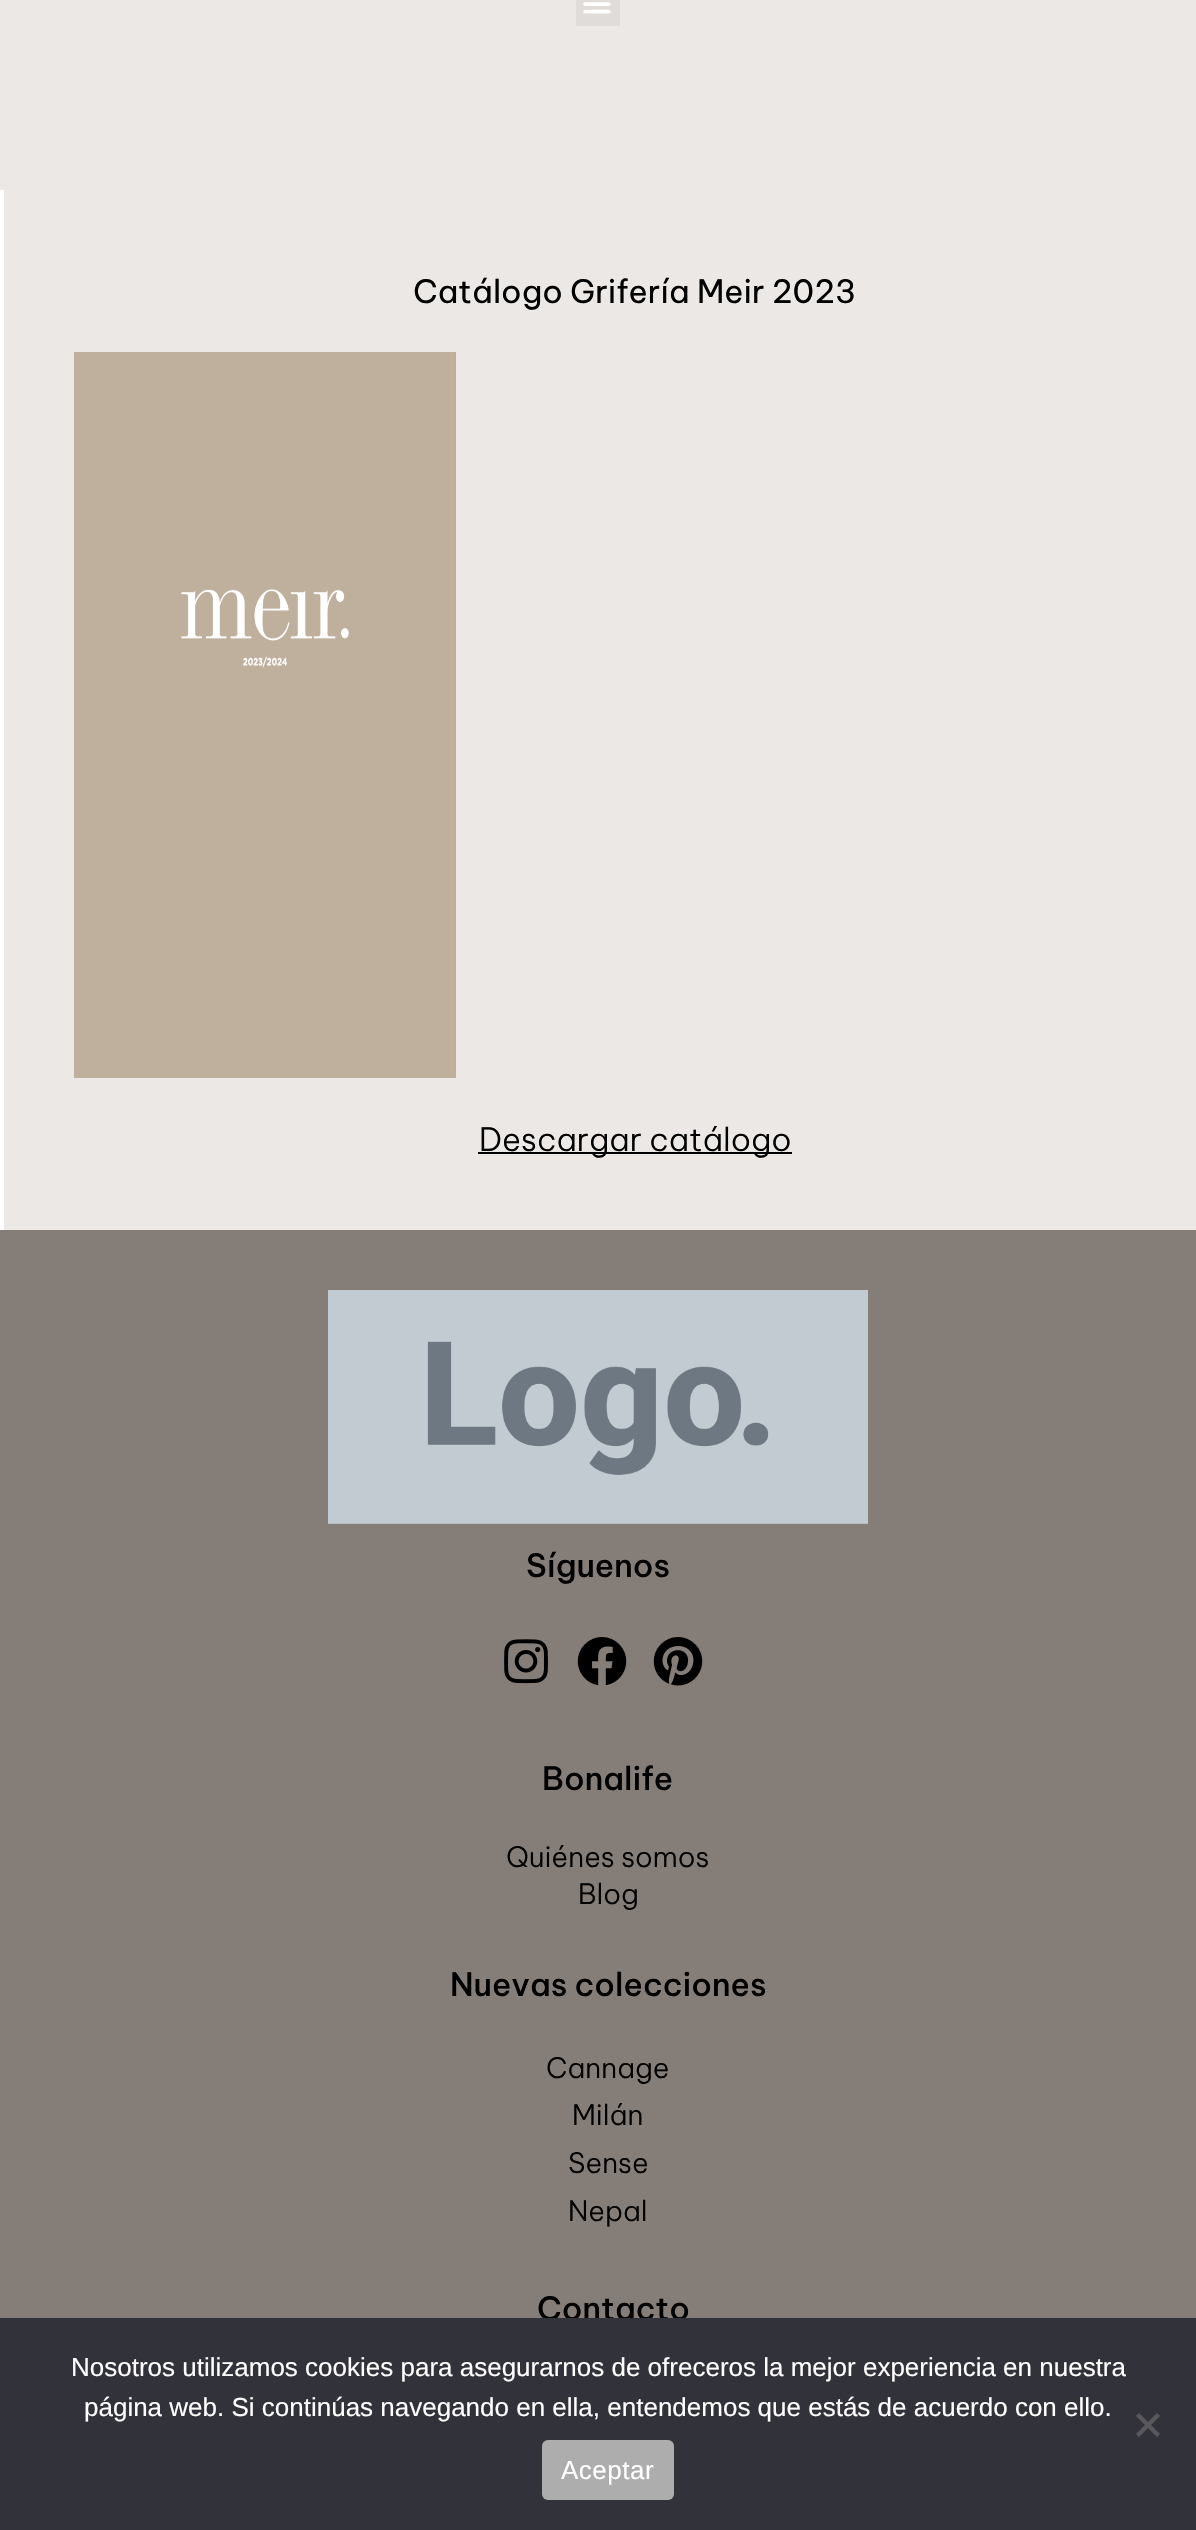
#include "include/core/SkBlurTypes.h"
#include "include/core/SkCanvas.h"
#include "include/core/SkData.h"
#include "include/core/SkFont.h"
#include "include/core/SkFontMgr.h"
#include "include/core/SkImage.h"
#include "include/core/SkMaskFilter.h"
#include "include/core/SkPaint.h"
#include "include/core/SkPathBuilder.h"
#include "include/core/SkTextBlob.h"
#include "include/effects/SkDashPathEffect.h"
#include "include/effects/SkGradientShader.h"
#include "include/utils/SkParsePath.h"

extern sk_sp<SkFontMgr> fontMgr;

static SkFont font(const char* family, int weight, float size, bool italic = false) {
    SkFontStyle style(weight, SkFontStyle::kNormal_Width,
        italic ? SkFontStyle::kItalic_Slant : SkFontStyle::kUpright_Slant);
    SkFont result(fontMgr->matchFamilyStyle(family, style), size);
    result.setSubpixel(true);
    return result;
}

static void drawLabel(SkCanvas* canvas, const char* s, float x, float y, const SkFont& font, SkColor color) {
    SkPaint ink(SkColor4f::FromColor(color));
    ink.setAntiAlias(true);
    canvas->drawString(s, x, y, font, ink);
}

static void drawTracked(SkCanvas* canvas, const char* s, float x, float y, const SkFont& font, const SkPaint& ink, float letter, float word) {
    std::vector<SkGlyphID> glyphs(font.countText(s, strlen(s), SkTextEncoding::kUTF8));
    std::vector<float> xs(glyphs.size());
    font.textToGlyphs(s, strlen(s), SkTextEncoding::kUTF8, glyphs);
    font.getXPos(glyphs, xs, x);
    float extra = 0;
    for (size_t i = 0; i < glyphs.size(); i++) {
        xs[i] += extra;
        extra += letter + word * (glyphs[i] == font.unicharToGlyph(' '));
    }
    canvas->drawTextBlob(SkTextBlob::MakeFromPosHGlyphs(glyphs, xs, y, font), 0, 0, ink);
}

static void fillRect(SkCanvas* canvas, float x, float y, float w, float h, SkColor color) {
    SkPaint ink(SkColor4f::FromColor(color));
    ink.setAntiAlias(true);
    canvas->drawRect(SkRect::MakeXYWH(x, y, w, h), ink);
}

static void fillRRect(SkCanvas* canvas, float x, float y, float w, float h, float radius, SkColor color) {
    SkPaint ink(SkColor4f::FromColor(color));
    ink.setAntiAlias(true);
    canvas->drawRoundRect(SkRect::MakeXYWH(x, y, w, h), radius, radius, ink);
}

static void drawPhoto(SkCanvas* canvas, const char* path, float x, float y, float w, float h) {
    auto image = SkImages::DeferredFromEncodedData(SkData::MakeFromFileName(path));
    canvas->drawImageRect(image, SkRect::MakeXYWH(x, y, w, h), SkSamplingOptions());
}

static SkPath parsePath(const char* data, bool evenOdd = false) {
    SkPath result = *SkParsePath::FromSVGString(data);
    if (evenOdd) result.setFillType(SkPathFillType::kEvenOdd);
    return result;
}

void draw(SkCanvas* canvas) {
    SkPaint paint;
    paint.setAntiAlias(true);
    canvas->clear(0xFFEBE8E5);
    fillRect(canvas, 576, 0, 44, 26, 0xFFDFDCDA);
    drawPhoto(canvas, "assets/img1.png", 583, 2, 28, 12);
    fillRect(canvas, 0, 190, 4, 1040, 0xFFFFFFFF);
    SkFont font1 = font("Be Vietnam Pro", 400, 32);
    drawLabel(canvas, "Catálogo Grifería Meir 2023", 413, 303, font1, 0xFF000000);
    drawPhoto(canvas, "assets/img2.png", 74, 352, 382, 726);
    fillRect(canvas, 478, 1152, 314, 2, 0xFF000000);
    SkFont font2 = font("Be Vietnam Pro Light", 300, 32);
    drawLabel(canvas, "Descargar catálogo", 479, 1151, font2, 0xFF000000);
    fillRect(canvas, 0, 1230, 1196, 1088, 0xFF857D78);
    drawPhoto(canvas, "assets/img3.png", 328, 1290, 540, 234);
    SkFont font3 = font("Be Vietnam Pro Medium", 500, 32);
    drawLabel(canvas, "Síguenos", 526, 1577, font3, 0xFF000000);
    drawPhoto(canvas, "assets/img4.png", 504, 1639, 44, 45);
    drawPhoto(canvas, "assets/img5.png", 577, 1637, 50, 49);
    drawPhoto(canvas, "assets/img6.png", 653, 1637, 50, 49);
    drawLabel(canvas, "Bonalife", 542, 1790, font3, 0xFF000000);
    SkFont font4 = font("Be Vietnam Pro Light", 300, 28);
    drawLabel(canvas, "Quiénes somos", 506, 1867, font4, 0xFF000000);
    drawLabel(canvas, "Blog", 578, 1904, font4, 0xFF000000);
    drawLabel(canvas, "Nuevas colecciones", 450, 1996, font3, 0xFF000000);
    drawLabel(canvas, "Cannage", 546, 2078, font4, 0xFF000000);
    drawLabel(canvas, "Milán", 572, 2125, font4, 0xFF000000);
    drawLabel(canvas, "Sense", 568, 2173, font4, 0xFF000000);
    drawLabel(canvas, "Nepal", 568, 2221, font4, 0xFF000000);
    drawLabel(canvas, "Contacto", 537, 2320, font3, 0xFF000000);
    fillRect(canvas, 0, 2318, 1196, 212, 0xFF32323A);
    SkFont font5 = font("Liberation Sans", 400, 26);
    drawLabel(canvas, "Nosotros utilizamos cookies para asegurarnos de ofreceros la mejor experiencia en nuestra", 71, 2376, font5, 0xFFFFFFFF);
    drawLabel(canvas, "página web. Si continúas navegando en ella, entendemos que estás de acuerdo con ello.", 84, 2416, font5, 0xFFFFFFFF);
    paint.setColor(0xFF59595D);
    canvas->drawPath(parsePath("M1157 2413L1160 2416L1139 2437L1136 2434Z"), paint);
    canvas->drawPath(parsePath("M1136 2416L1139 2413L1160 2434L1157 2437Z"), paint);
    fillRRect(canvas, 542, 2440, 132, 60, 6, 0xFFADADAD);
    paint.setColor(0xFFFFFFFF);
    drawTracked(canvas, "Aceptar", 561, 2479, font5, paint, 0.5f, 0);
}
